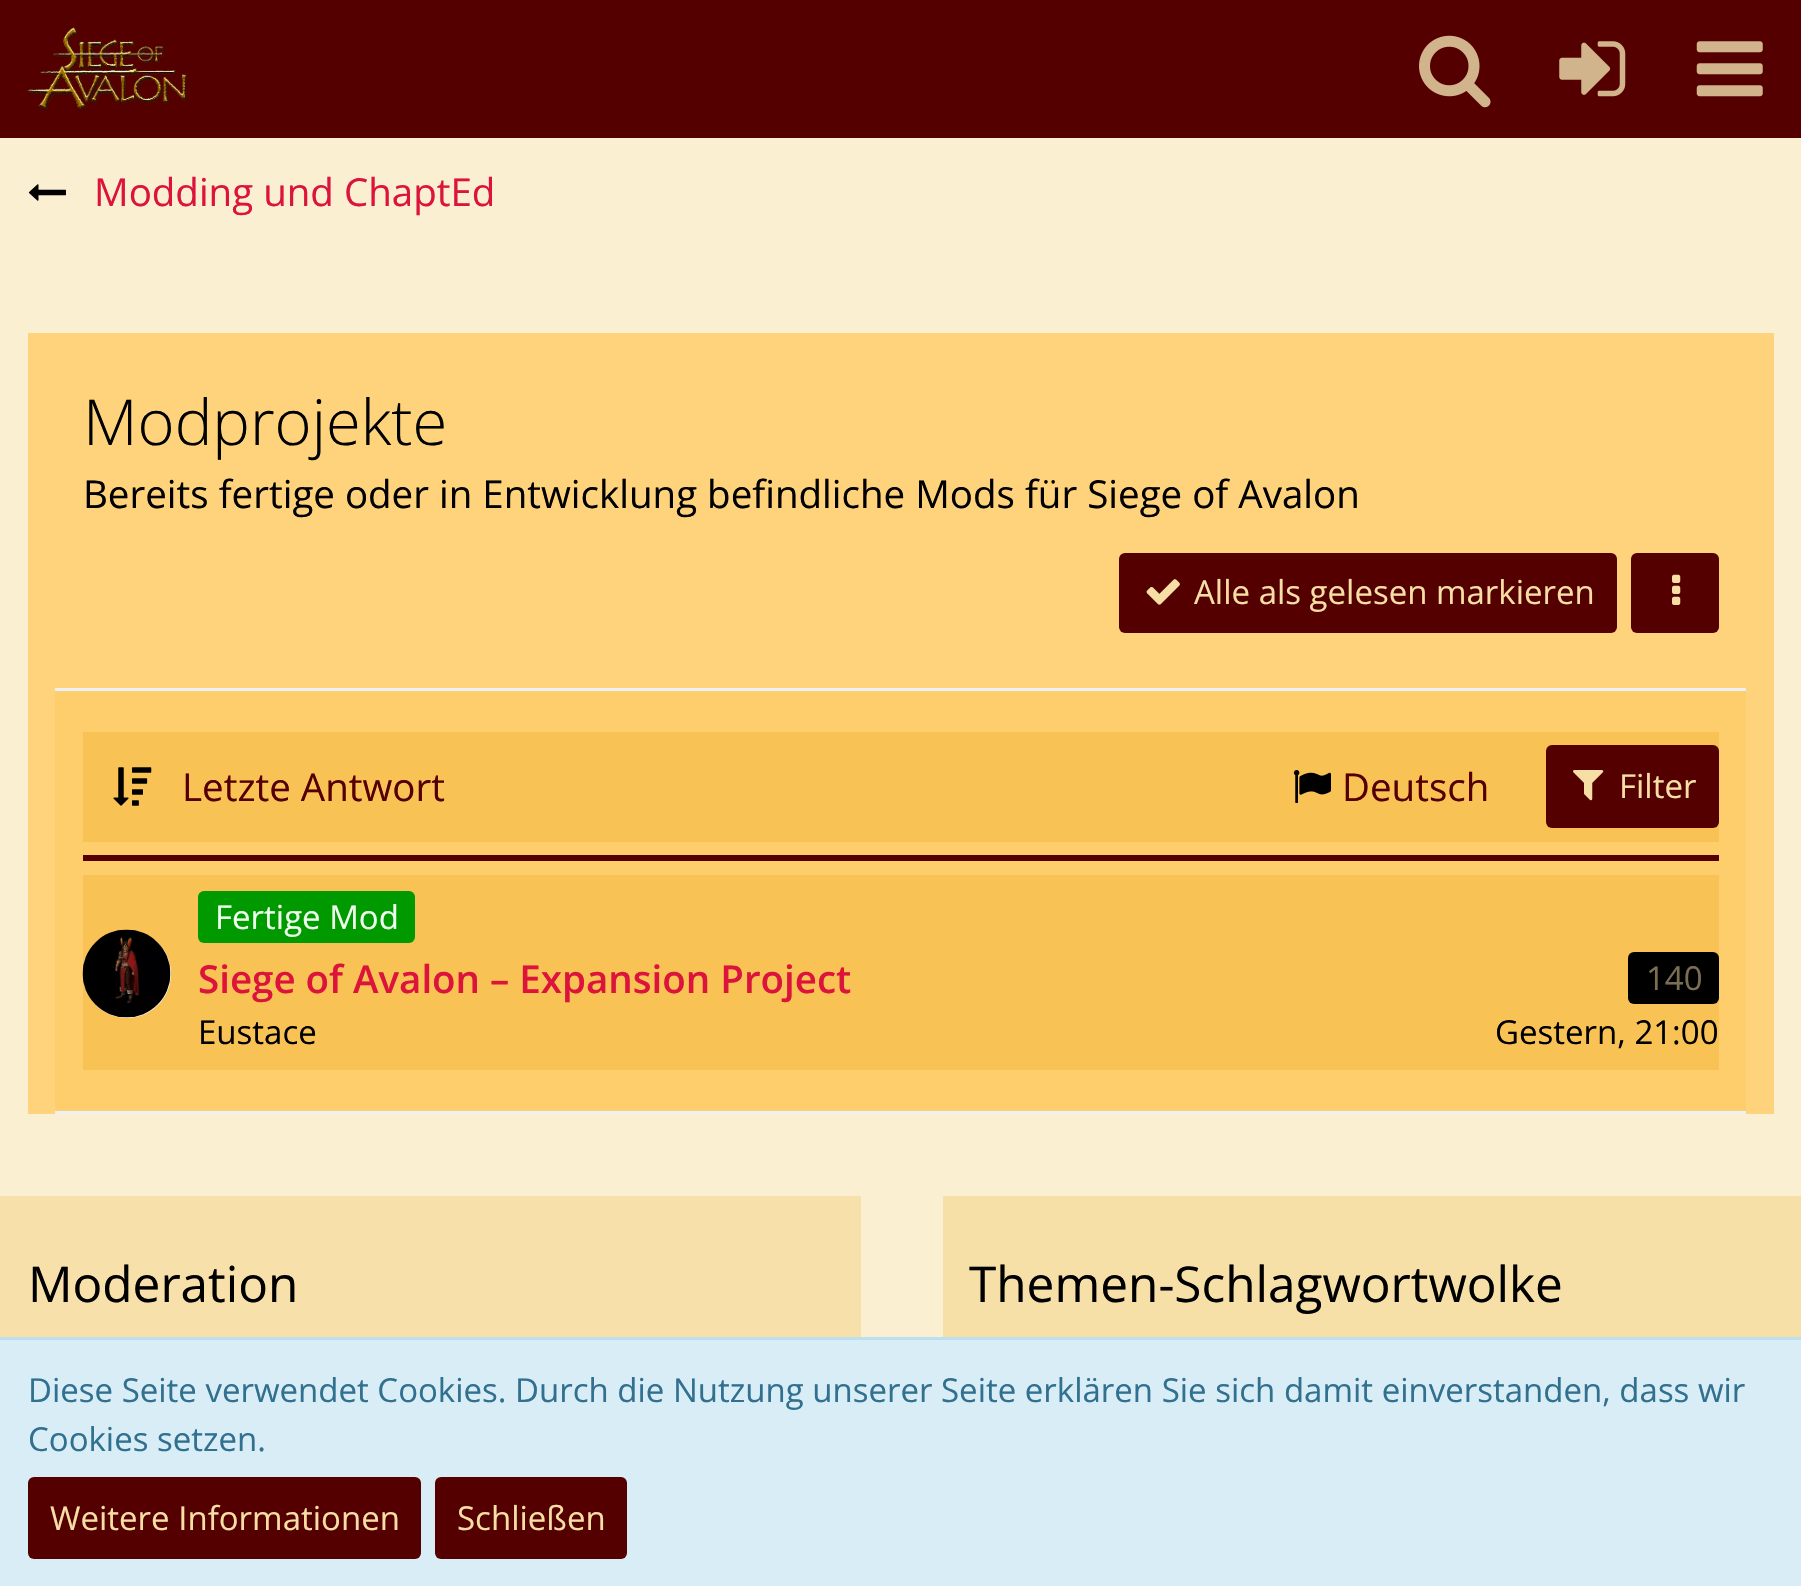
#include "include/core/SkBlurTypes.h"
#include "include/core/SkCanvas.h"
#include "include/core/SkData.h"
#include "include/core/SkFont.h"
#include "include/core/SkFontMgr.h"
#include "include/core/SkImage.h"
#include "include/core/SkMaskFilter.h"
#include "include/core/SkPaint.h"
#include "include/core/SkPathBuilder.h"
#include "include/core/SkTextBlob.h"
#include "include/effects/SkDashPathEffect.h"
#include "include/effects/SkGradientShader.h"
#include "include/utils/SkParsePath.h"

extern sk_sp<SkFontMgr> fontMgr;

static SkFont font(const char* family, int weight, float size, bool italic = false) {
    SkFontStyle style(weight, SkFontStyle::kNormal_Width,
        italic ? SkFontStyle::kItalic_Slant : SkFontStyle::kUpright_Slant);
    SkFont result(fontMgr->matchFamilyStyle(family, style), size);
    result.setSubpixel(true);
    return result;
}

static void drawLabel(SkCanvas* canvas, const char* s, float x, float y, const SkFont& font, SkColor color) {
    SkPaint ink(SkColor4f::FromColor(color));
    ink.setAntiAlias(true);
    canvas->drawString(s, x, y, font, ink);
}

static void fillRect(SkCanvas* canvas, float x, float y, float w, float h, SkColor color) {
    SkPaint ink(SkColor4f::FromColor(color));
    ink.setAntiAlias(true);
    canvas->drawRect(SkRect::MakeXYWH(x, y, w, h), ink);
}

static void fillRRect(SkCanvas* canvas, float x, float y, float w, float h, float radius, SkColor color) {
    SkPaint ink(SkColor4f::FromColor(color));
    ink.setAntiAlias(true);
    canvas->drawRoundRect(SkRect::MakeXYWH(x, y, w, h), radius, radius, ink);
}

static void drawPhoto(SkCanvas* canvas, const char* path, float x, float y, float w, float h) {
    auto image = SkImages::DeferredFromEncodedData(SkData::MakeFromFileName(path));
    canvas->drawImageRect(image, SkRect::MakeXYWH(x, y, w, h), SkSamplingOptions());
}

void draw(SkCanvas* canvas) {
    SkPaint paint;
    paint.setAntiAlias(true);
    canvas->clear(0xFFFBEFD2);
    fillRect(canvas, 0, 0, 1801, 138, 0xFF550000);
    drawPhoto(canvas, "assets/img1.png", 27, 27, 160, 83);
    drawPhoto(canvas, "assets/img2.png", 1419, 35, 72, 73);
    drawPhoto(canvas, "assets/img3.png", 1559, 41, 67, 56);
    drawPhoto(canvas, "assets/img4.png", 1696, 41, 67, 56);
    drawPhoto(canvas, "assets/img5.png", 28, 184, 38, 17);
    SkFont font1 = font("Open Sans", 400, 38.5f);
    drawLabel(canvas, "Modding und ChaptEd", 94, 206, font1, 0xFFDC143C);
    fillRect(canvas, 28, 333, 1746, 781, 0xFFFFD37B);
    SkFont font2 = font("Open Sans", 300, 63.25f);
    drawLabel(canvas, "Modprojekte", 83, 445, font2, 0xFF000000);
    drawLabel(canvas, "Bereits fertige oder in Entwicklung befindliche Mods für Siege of Avalon", 83, 508, font1, 0xFF000000);
    fillRRect(canvas, 1119, 553, 498, 80, 6, 0xFF550000);
    drawPhoto(canvas, "assets/img6.png", 1146, 579, 34, 26);
    SkFont font3 = font("Open Sans", 400, 33);
    drawLabel(canvas, "Alle als gelesen markieren", 1194, 604, font3, 0xFFF6DEA4);
    fillRRect(canvas, 1631, 553, 88, 80, 6, 0xFF550000);
    drawPhoto(canvas, "assets/img7.png", 1672, 574, 9, 31);
    fillRect(canvas, 55, 691, 1691, 420, 0xFFFFCE6C);
    fillRect(canvas, 55, 688, 1691, 3, 0xFFECF1F7);
    fillRect(canvas, 55, 1111, 1691, 3, 0xFFECF1F7);
    fillRect(canvas, 83, 855, 1636, 6, 0xFF550000);
    fillRect(canvas, 83, 732, 1636, 110, 0xFFF9C255);
    drawPhoto(canvas, "assets/img8.png", 113, 767, 39, 39);
    drawLabel(canvas, "Letzte Antwort", 182, 801, font1, 0xFF550000);
    drawPhoto(canvas, "assets/img9.png", 1293, 770, 38, 33);
    drawLabel(canvas, "Deutsch", 1342, 801, font1, 0xFF550000);
    fillRRect(canvas, 1546, 745, 173, 83, 6, 0xFF550000);
    drawPhoto(canvas, "assets/img10.png", 1573, 770, 31, 31);
    drawLabel(canvas, "Filter", 1619, 798, font3, 0xFFF6DEA4);
    fillRect(canvas, 83, 875, 1636, 195, 0xFFF9C255);
    paint.setColor(0xFFFFFFFF);
    canvas->drawCircle(127, 974, 44, paint);
    drawPhoto(canvas, "assets/img11.png", 82, 929, 89, 89);
    fillRRect(canvas, 198, 891, 217, 52, 6, 0xFF009900);
    drawLabel(canvas, "Fertige Mod", 215, 929, font3, 0xFFEEFFEE);
    SkFont font4 = font("Open Sans", 600, 38.5f);
    drawLabel(canvas, "Siege of Avalon – Expansion Project", 198, 993, font4, 0xFFDC143C);
    fillRRect(canvas, 1628, 952, 91, 52, 6, 0xFF000000);
    drawLabel(canvas, "140", 1646, 990, font3, 0xFF7B6F52);
    drawLabel(canvas, "Eustace", 198, 1044, font3, 0xFF000000);
    drawLabel(canvas, "Gestern, 21:00", 1495, 1044, font3, 0xFF000000);
    fillRect(canvas, 0, 1196, 861, 141, 0xFFF7E0A9);
    SkFont font5 = font("Open Sans", 400, 49.5f);
    drawLabel(canvas, "Moderation", 28, 1302, font5, 0xFF000000);
    fillRect(canvas, 943, 1196, 858, 141, 0xFFF6E0A8);
    drawLabel(canvas, "Themen-Schlagwortwolke", 969, 1302, font5, 0xFF000000);
    fillRect(canvas, 0, 1340, 1801, 246, 0xFFD9EDF7);
    fillRect(canvas, 0, 1337, 1801, 3, 0xFFBCDFF1);
    drawLabel(canvas, "Diese Seite verwendet Cookies. Durch die Nutzung unserer Seite erklären Sie sich damit einverstanden, dass wir", 28, 1402, font3, 0xFF31708F);
    drawLabel(canvas, "Cookies setzen.", 28, 1451, font3, 0xFF31708F);
    fillRRect(canvas, 28, 1477, 393, 82, 6, 0xFF550000);
    drawLabel(canvas, "Weitere Informationen", 50, 1530, font3, 0xFFF6DEA4);
    fillRRect(canvas, 435, 1477, 192, 82, 6, 0xFF550000);
    drawLabel(canvas, "Schließen", 457, 1530, font3, 0xFFF6DEA4);
}
